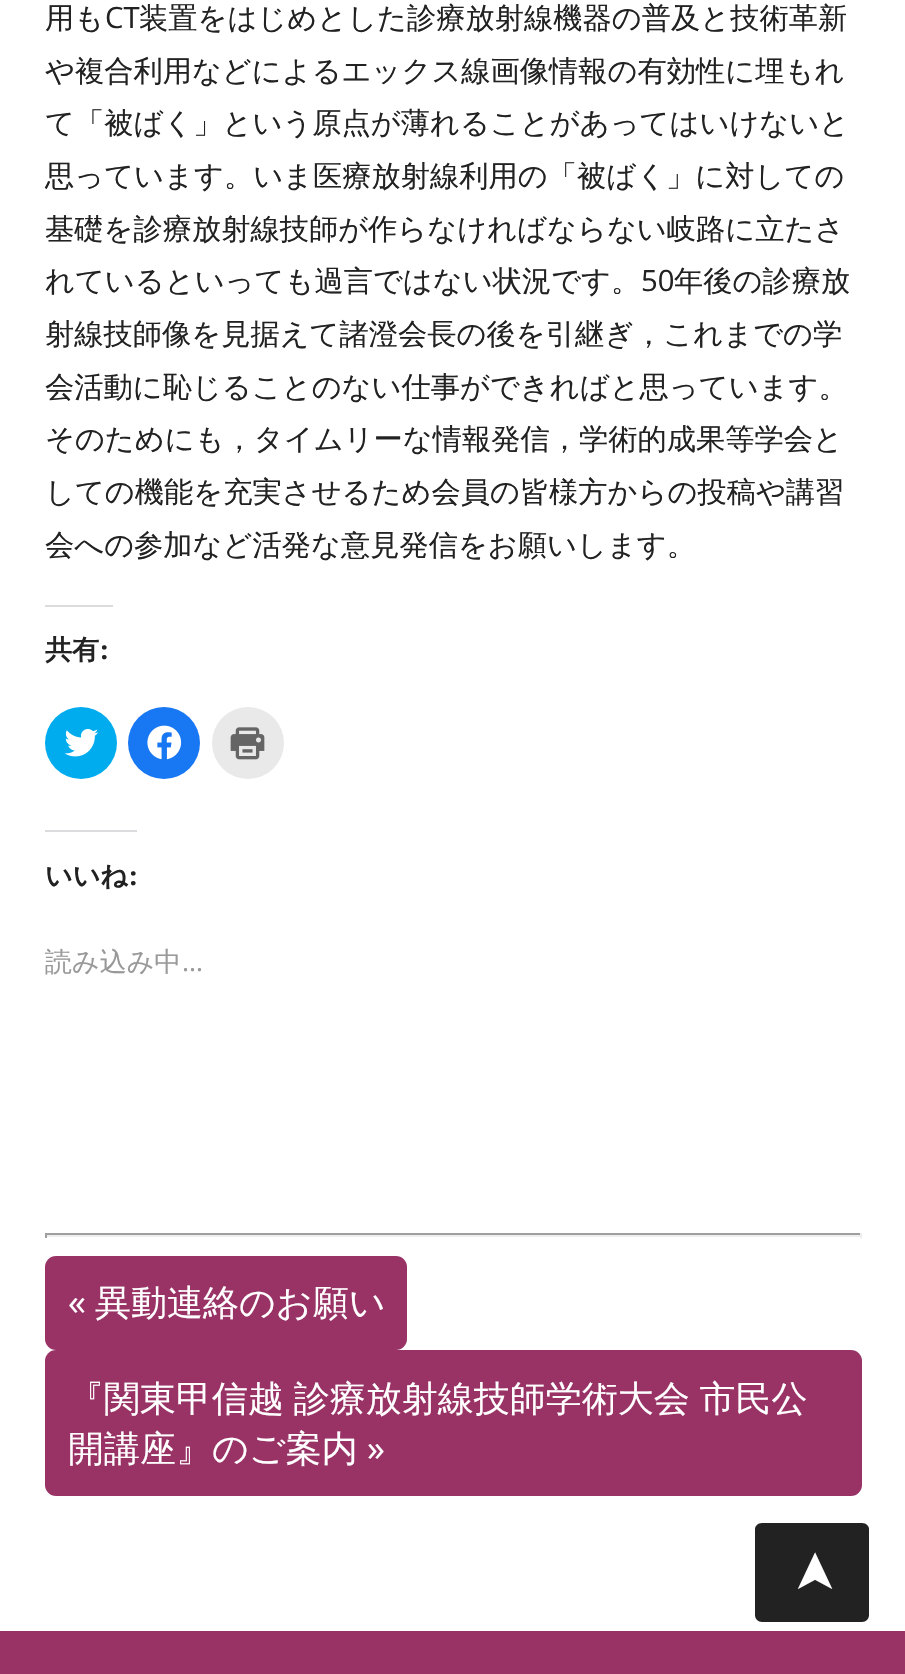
#include "include/core/SkBlurTypes.h"
#include "include/core/SkCanvas.h"
#include "include/core/SkData.h"
#include "include/core/SkFont.h"
#include "include/core/SkFontMgr.h"
#include "include/core/SkImage.h"
#include "include/core/SkMaskFilter.h"
#include "include/core/SkPaint.h"
#include "include/core/SkPathBuilder.h"
#include "include/core/SkTextBlob.h"
#include "include/effects/SkDashPathEffect.h"
#include "include/effects/SkGradientShader.h"
#include "include/utils/SkParsePath.h"

extern sk_sp<SkFontMgr> fontMgr;

static SkFont font(const char* family, int weight, float size, bool italic = false) {
    SkFontStyle style(weight, SkFontStyle::kNormal_Width,
        italic ? SkFontStyle::kItalic_Slant : SkFontStyle::kUpright_Slant);
    SkFont result(fontMgr->matchFamilyStyle(family, style), size);
    result.setSubpixel(true);
    return result;
}

static void drawLabel(SkCanvas* canvas, const char* s, float x, float y, const SkFont& font, SkColor color) {
    SkPaint ink(SkColor4f::FromColor(color));
    ink.setAntiAlias(true);
    canvas->drawString(s, x, y, font, ink);
}

static void drawTracked(SkCanvas* canvas, const char* s, float x, float y, const SkFont& font, const SkPaint& ink, float letter, float word) {
    std::vector<SkGlyphID> glyphs(font.countText(s, strlen(s), SkTextEncoding::kUTF8));
    std::vector<float> xs(glyphs.size());
    font.textToGlyphs(s, strlen(s), SkTextEncoding::kUTF8, glyphs);
    font.getXPos(glyphs, xs, x);
    float extra = 0;
    for (size_t i = 0; i < glyphs.size(); i++) {
        xs[i] += extra;
        extra += letter + word * (glyphs[i] == font.unicharToGlyph(' '));
    }
    canvas->drawTextBlob(SkTextBlob::MakeFromPosHGlyphs(glyphs, xs, y, font), 0, 0, ink);
}

static void fillRect(SkCanvas* canvas, float x, float y, float w, float h, SkColor color) {
    SkPaint ink(SkColor4f::FromColor(color));
    ink.setAntiAlias(true);
    canvas->drawRect(SkRect::MakeXYWH(x, y, w, h), ink);
}

static void fillRRect(SkCanvas* canvas, float x, float y, float w, float h, float radius, SkColor color) {
    SkPaint ink(SkColor4f::FromColor(color));
    ink.setAntiAlias(true);
    canvas->drawRoundRect(SkRect::MakeXYWH(x, y, w, h), radius, radius, ink);
}

static void drawPhoto(SkCanvas* canvas, const char* path, float x, float y, float w, float h) {
    auto image = SkImages::DeferredFromEncodedData(SkData::MakeFromFileName(path));
    canvas->drawImageRect(image, SkRect::MakeXYWH(x, y, w, h), SkSamplingOptions());
}

static SkPath parsePath(const char* data, bool evenOdd = false) {
    SkPath result = *SkParsePath::FromSVGString(data);
    if (evenOdd) result.setFillType(SkPathFillType::kEvenOdd);
    return result;
}

void draw(SkCanvas* canvas) {
    SkPaint paint;
    paint.setAntiAlias(true);
    canvas->clear(0xFFFFFFFF);
    SkFont font1 = font("WenQuanYi Zen Hei", 500, 29.25f);
    drawLabel(canvas, "用も", 45, 28, font1, 0xFF222222);
    SkFont font2 = font("Open Sans", 400, 29.25f);
    drawLabel(canvas, "CT", 105, 28, font2, 0xFF222222);
    drawLabel(canvas, "装置をはじめとした診療放射線機器の普及と技術革新", 139, 28, font1, 0xFF222222);
    drawLabel(canvas, "や複合利用などによるエックス線画像情報の有効性に埋もれ", 45, 81, font1, 0xFF222222);
    drawLabel(canvas, "て「被ばく」という原点が薄れることがあってはいけないと", 45, 133, font1, 0xFF222222);
    drawLabel(canvas, "思っています。いま医療放射線利用の「被ばく」に対しての", 45, 186, font1, 0xFF222222);
    drawLabel(canvas, "基礎を診療放射線技師が作らなければならない岐路に立たさ", 45, 239, font1, 0xFF222222);
    drawLabel(canvas, "れているといっても過言ではない状況です。", 45, 291, font1, 0xFF222222);
    drawLabel(canvas, "50", 641, 291, font2, 0xFF222222);
    drawLabel(canvas, "年後の診療放", 674, 291, font1, 0xFF222222);
    drawLabel(canvas, "射線技師像を見据えて諸澄会長の後を引継ぎ，これまでの学", 45, 344, font1, 0xFF222222);
    drawLabel(canvas, "会活動に恥じることのない仕事ができればと思っています。", 45, 397, font1, 0xFF222222);
    drawLabel(canvas, "そのためにも，タイムリーな情報発信，学術的成果等学会と", 45, 449, font1, 0xFF222222);
    drawLabel(canvas, "しての機能を充実させるため会員の皆様方からの投稿や講習", 45, 502, font1, 0xFF222222);
    drawLabel(canvas, "会への参加など活発な意見発信をお願いします。", 45, 555, font1, 0xFF222222);
    fillRect(canvas, 45, 605, 68, 2, 0xFFDCDCDE);
    SkFont font3 = font("WenQuanYi Zen Hei", 700, 27);
    drawLabel(canvas, "共有", 45, 659, font3, 0xFF222222);
    SkFont font4 = font("PT Serif", 700, 27);
    drawLabel(canvas, ":", 99, 659, font4, 0xFF222222);
    paint.setColor(0xFF00ACEE);
    canvas->drawCircle(81, 743, 36, paint);
    drawPhoto(canvas, "assets/img1.png", 64, 729, 35, 28);
    paint.setColor(0xFF1877F2);
    canvas->drawCircle(164, 743, 36, paint);
    drawPhoto(canvas, "assets/img2.png", 147, 725, 35, 35);
    paint.setColor(0xFFE9E9E9);
    canvas->drawCircle(248, 743, 36, paint);
    drawPhoto(canvas, "assets/img3.png", 230, 727, 35, 33);
    fillRect(canvas, 45, 830, 92, 2, 0xFFDCDCDE);
    drawLabel(canvas, "いいね", 45, 885, font3, 0xFF222222);
    drawLabel(canvas, ":", 128, 885, font4, 0xFF222222);
    SkFont font5 = font("WenQuanYi Zen Hei", 500, 27);
    drawLabel(canvas, "読み込み中", 45, 971, font5, 0xFF999999);
    SkFont font6 = font("Open Sans", 400, 27);
    drawLabel(canvas, "…", 182, 971, font6, 0xFF999999);
    fillRect(canvas, 45, 1233, 817, 2, 0xFF9F9F9F);
    fillRect(canvas, 860, 1233, 2, 5, 0xFFEEEEEE);
    fillRect(canvas, 45, 1235, 817, 2, 0xFFEEEEEE);
    fillRect(canvas, 45, 1233, 2, 5, 0xFF9F9F9F);
    fillRRect(canvas, 45, 1256, 362, 94, 11, 0xFF993366);
    SkFont font7 = font("Open Sans", 400, 36);
    drawLabel(canvas, "«", 68, 1315, font7, 0xFFFFFFFF);
    SkFont font8 = font("WenQuanYi Zen Hei", 500, 36);
    drawLabel(canvas, "異動連絡のお願い", 95, 1315, font8, 0xFFFFFFFF);
    fillRRect(canvas, 45, 1350, 817, 146, 11, 0xFF993366);
    paint.setColor(0xFFFFFFFF);
    drawTracked(canvas, "『関東甲信越 診療放射線技師学術大会 市民公", 68, 1411, font8, paint, 0, -1);
    drawLabel(canvas, "開講座』のご案内", 68, 1461, font8, 0xFFFFFFFF);
    drawLabel(canvas, "»", 367, 1461, font7, 0xFFFFFFFF);
    fillRect(canvas, 0, 1631, 905, 43, 0xFF993366);
    paint.setColor(0xFF222222);
    canvas->drawPath(parsePath("M755 1615V1529C755 1526 758 1523 762 1523H862C866 1523 869 1526 869 1529V1615C869 1619 866 1622 862 1622H762C758 1622 755 1619 755 1615Z"), paint);
    SkFont font9 = font("DejaVu Sans", 400, 54);
    canvas->save();
    canvas->rotate(-90, 832, 1595);
    drawLabel(canvas, "➤", 832, 1595, font9, 0xFFFFFFFF);
    canvas->restore();
}
